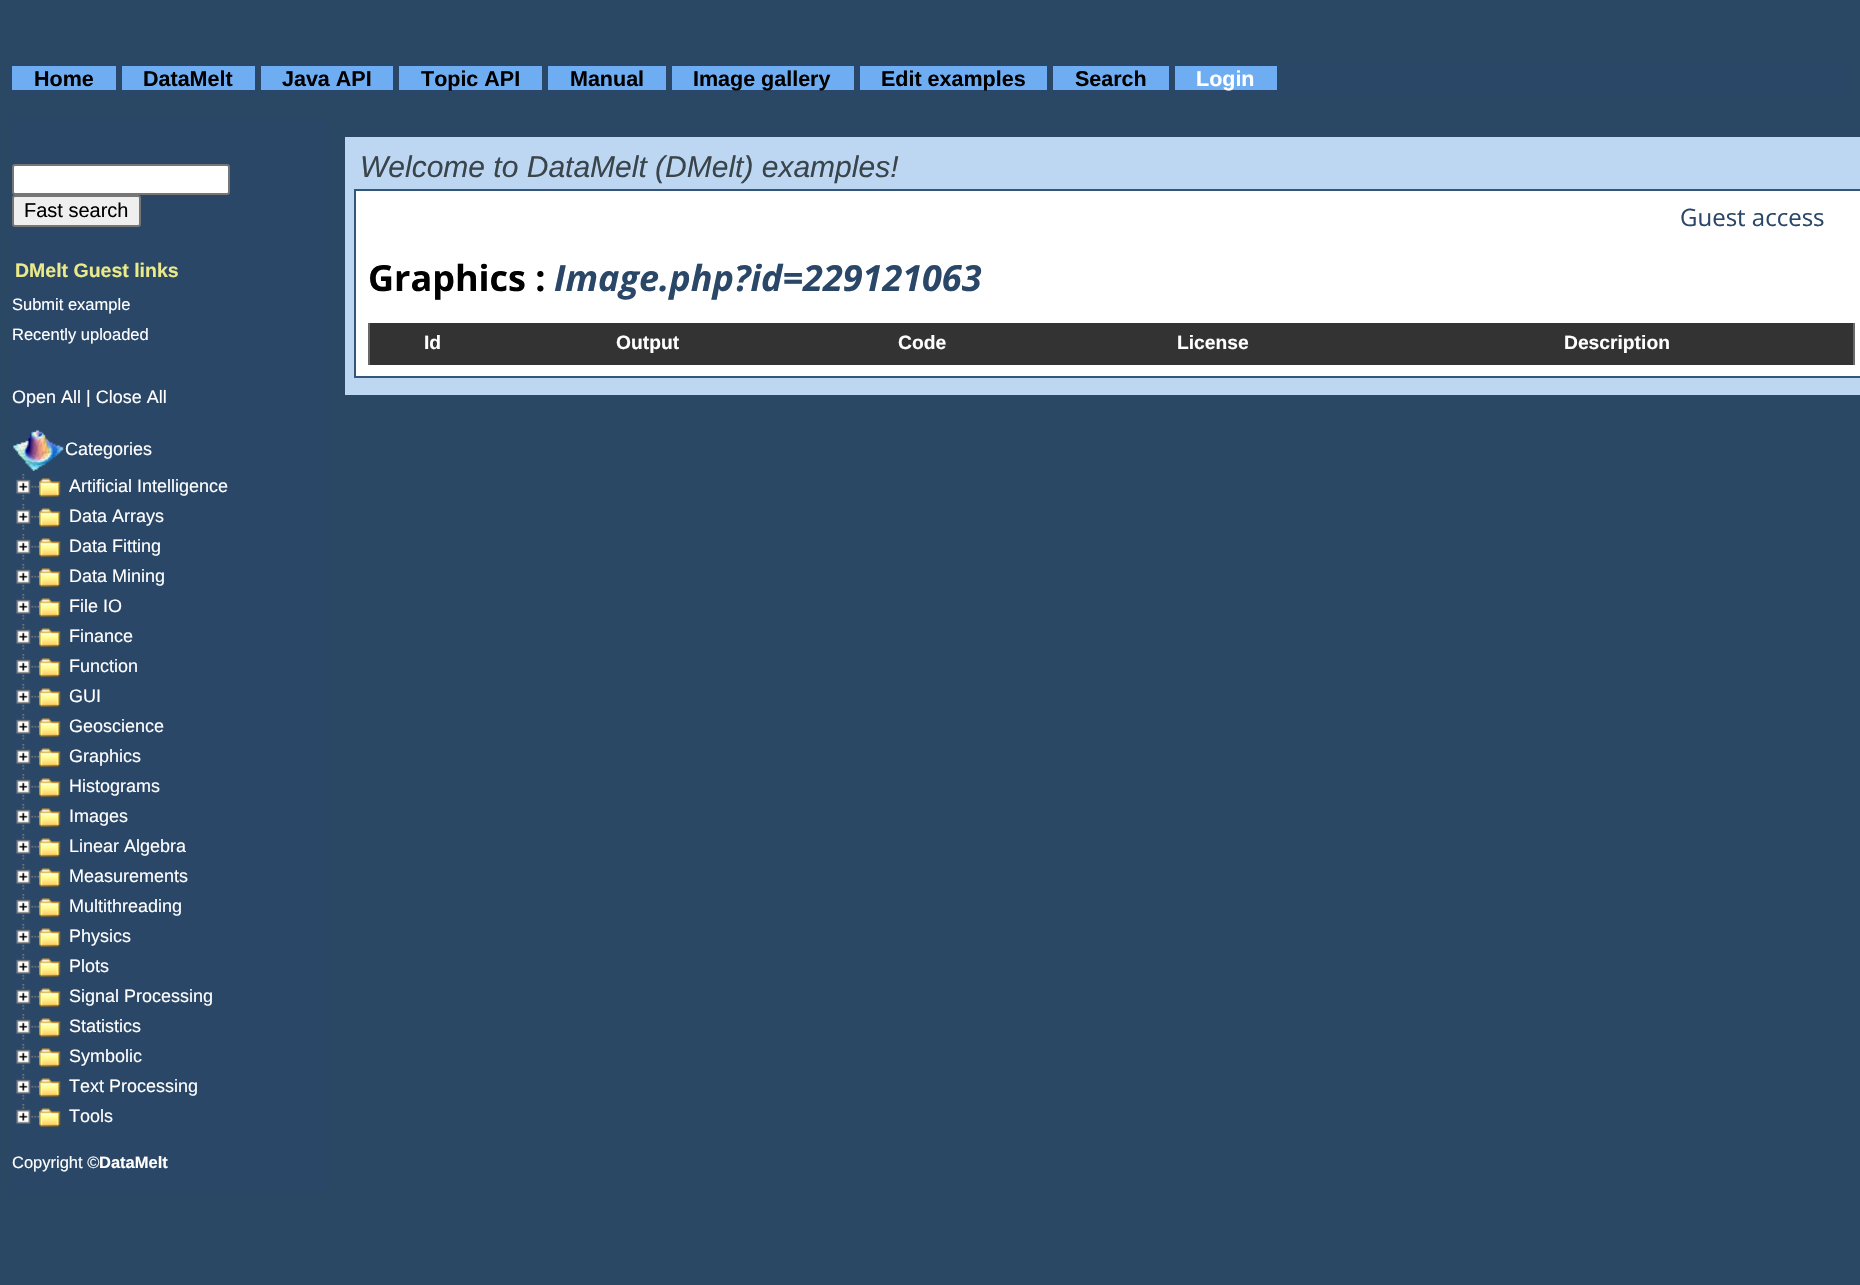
#include "include/core/SkBlurTypes.h"
#include "include/core/SkCanvas.h"
#include "include/core/SkData.h"
#include "include/core/SkFont.h"
#include "include/core/SkFontMgr.h"
#include "include/core/SkImage.h"
#include "include/core/SkMaskFilter.h"
#include "include/core/SkPaint.h"
#include "include/core/SkPathBuilder.h"
#include "include/core/SkTextBlob.h"
#include "include/effects/SkDashPathEffect.h"
#include "include/effects/SkGradientShader.h"
#include "include/utils/SkParsePath.h"

extern sk_sp<SkFontMgr> fontMgr;

static SkFont font(const char* family, int weight, float size, bool italic = false) {
    SkFontStyle style(weight, SkFontStyle::kNormal_Width,
        italic ? SkFontStyle::kItalic_Slant : SkFontStyle::kUpright_Slant);
    SkFont result(fontMgr->matchFamilyStyle(family, style), size);
    result.setSubpixel(true);
    return result;
}

static void drawLabel(SkCanvas* canvas, const char* s, float x, float y, const SkFont& font, SkColor color) {
    SkPaint ink(SkColor4f::FromColor(color));
    ink.setAntiAlias(true);
    canvas->drawString(s, x, y, font, ink);
}

static void fillRect(SkCanvas* canvas, float x, float y, float w, float h, SkColor color) {
    SkPaint ink(SkColor4f::FromColor(color));
    ink.setAntiAlias(true);
    canvas->drawRect(SkRect::MakeXYWH(x, y, w, h), ink);
}

static void drawPhoto(SkCanvas* canvas, const char* path, float x, float y, float w, float h) {
    auto image = SkImages::DeferredFromEncodedData(SkData::MakeFromFileName(path));
    canvas->drawImageRect(image, SkRect::MakeXYWH(x, y, w, h), SkSamplingOptions());
}

void draw(SkCanvas* canvas) {
    SkPaint paint;
    paint.setAntiAlias(true);
    canvas->clear(0xFF2A4764);
    fillRect(canvas, 12, 63, 1836, 33, 0xFF2A4767);
    fillRect(canvas, 12, 66, 104, 24, 0xFF6FADF2);
    SkFont font1 = font("Liberation Sans", 700, 21.5f);
    drawLabel(canvas, "Home", 34, 86, font1, 0xFF000000);
    fillRect(canvas, 122, 66, 133, 24, 0xFF6FADF2);
    drawLabel(canvas, "DataMelt", 143, 86, font1, 0xFF000000);
    fillRect(canvas, 261, 66, 132, 24, 0xFF6FADF2);
    drawLabel(canvas, "Java API", 282, 86, font1, 0xFF000000);
    fillRect(canvas, 399, 66, 143, 24, 0xFF6FADF2);
    drawLabel(canvas, "Topic API", 421, 86, font1, 0xFF000000);
    fillRect(canvas, 548, 66, 118, 24, 0xFF6FADF2);
    drawLabel(canvas, "Manual", 570, 86, font1, 0xFF000000);
    fillRect(canvas, 672, 66, 182, 24, 0xFF6FADF2);
    drawLabel(canvas, "Image gallery", 693, 86, font1, 0xFF000000);
    fillRect(canvas, 860, 66, 187, 24, 0xFF6FADF2);
    drawLabel(canvas, "Edit examples", 881, 86, font1, 0xFF000000);
    fillRect(canvas, 1053, 66, 116, 24, 0xFF6FADF2);
    drawLabel(canvas, "Search", 1075, 86, font1, 0xFF000000);
    fillRect(canvas, 1175, 66, 102, 24, 0xFF6FADF2);
    drawLabel(canvas, "Login", 1196, 86, font1, 0xFFFFFFFF);
    fillRect(canvas, 12, 119, 315, 1074, 0xFF2A4767);
    paint.setColor(0xFFFFFFFF);
    canvas->drawRoundRect(SkRect::MakeXYWH(13, 165, 216, 29), 2, 2, paint);
    paint.setStroke(true);
    paint.setStrokeWidth(2);
    paint.setColor(0xFF767676);
    canvas->drawRoundRect(SkRect::MakeXYWH(13, 165, 216, 29), 2, 2, paint);
    paint.setStroke(false);
    paint.setColor(0xFFEFEFEF);
    canvas->drawRoundRect(SkRect::MakeXYWH(13, 196, 127, 30), 2, 2, paint);
    paint.setStroke(true);
    paint.setColor(0xFF767676);
    canvas->drawRoundRect(SkRect::MakeXYWH(13, 196, 127, 30), 2, 2, paint);
    SkFont font2 = font("Liberation Sans", 400, 20);
    drawLabel(canvas, "Fast search", 24, 217, font2, 0xFF000000);
    SkFont font3 = font("Liberation Sans", 700, 19.5f);
    drawLabel(canvas, "DMelt Guest links", 15, 277, font3, 0xFFEAEA8A);
    SkFont font4 = font("Liberation Sans", 400, 16.5f);
    drawLabel(canvas, "Submit example", 12, 310, font4, 0xFFFFFFFF);
    drawLabel(canvas, "Recently uploaded", 12, 340, font4, 0xFFFFFFFF);
    SkFont font5 = font("Liberation Sans", 400, 18);
    drawLabel(canvas, "Open All | Close All", 12, 403, font5, 0xFFFFFFFF);
    drawPhoto(canvas, "assets/img1.png", 13, 430, 51, 41);
    drawLabel(canvas, "Categories", 65, 455, font5, 0xFFFFFFFF);
    drawPhoto(canvas, "assets/img2.png", 16, 474, 23, 26);
    drawPhoto(canvas, "assets/img3.png", 39, 478, 22, 19);
    drawLabel(canvas, "Artificial Intelligence", 69, 492, font5, 0xFFFFFFFF);
    drawPhoto(canvas, "assets/img2.png", 16, 504, 23, 26);
    drawPhoto(canvas, "assets/img3.png", 39, 508, 22, 19);
    drawLabel(canvas, "Data Arrays", 69, 522, font5, 0xFFFFFFFF);
    drawPhoto(canvas, "assets/img2.png", 16, 534, 23, 26);
    drawPhoto(canvas, "assets/img3.png", 39, 538, 22, 19);
    drawLabel(canvas, "Data Fitting", 69, 552, font5, 0xFFFFFFFF);
    drawPhoto(canvas, "assets/img2.png", 16, 564, 23, 26);
    drawPhoto(canvas, "assets/img3.png", 39, 568, 22, 19);
    drawLabel(canvas, "Data Mining", 69, 582, font5, 0xFFFFFFFF);
    drawPhoto(canvas, "assets/img2.png", 16, 594, 23, 26);
    drawPhoto(canvas, "assets/img3.png", 39, 598, 22, 19);
    drawLabel(canvas, "File IO", 69, 612, font5, 0xFFFFFFFF);
    drawPhoto(canvas, "assets/img2.png", 16, 624, 23, 26);
    drawPhoto(canvas, "assets/img3.png", 39, 628, 22, 19);
    drawLabel(canvas, "Finance", 69, 642, font5, 0xFFFFFFFF);
    drawPhoto(canvas, "assets/img2.png", 16, 654, 23, 26);
    drawPhoto(canvas, "assets/img3.png", 39, 658, 22, 19);
    drawLabel(canvas, "Function", 69, 672, font5, 0xFFFFFFFF);
    drawPhoto(canvas, "assets/img2.png", 16, 684, 23, 26);
    drawPhoto(canvas, "assets/img3.png", 39, 688, 22, 19);
    drawLabel(canvas, "GUI", 69, 702, font5, 0xFFFFFFFF);
    drawPhoto(canvas, "assets/img2.png", 16, 714, 23, 26);
    drawPhoto(canvas, "assets/img3.png", 39, 718, 22, 19);
    drawLabel(canvas, "Geoscience", 69, 732, font5, 0xFFFFFFFF);
    drawPhoto(canvas, "assets/img2.png", 16, 744, 23, 26);
    drawPhoto(canvas, "assets/img3.png", 39, 748, 22, 19);
    drawLabel(canvas, "Graphics", 69, 762, font5, 0xFFFFFFFF);
    drawPhoto(canvas, "assets/img2.png", 16, 774, 23, 26);
    drawPhoto(canvas, "assets/img3.png", 39, 778, 22, 19);
    drawLabel(canvas, "Histograms", 69, 792, font5, 0xFFFFFFFF);
    drawPhoto(canvas, "assets/img2.png", 16, 804, 23, 26);
    drawPhoto(canvas, "assets/img3.png", 39, 808, 22, 19);
    drawLabel(canvas, "Images", 69, 822, font5, 0xFFFFFFFF);
    drawPhoto(canvas, "assets/img2.png", 16, 834, 23, 26);
    drawPhoto(canvas, "assets/img3.png", 39, 838, 22, 19);
    drawLabel(canvas, "Linear Algebra", 69, 852, font5, 0xFFFFFFFF);
    drawPhoto(canvas, "assets/img2.png", 16, 864, 23, 26);
    drawPhoto(canvas, "assets/img3.png", 39, 868, 22, 19);
    drawLabel(canvas, "Measurements", 69, 882, font5, 0xFFFFFFFF);
    drawPhoto(canvas, "assets/img2.png", 16, 894, 23, 26);
    drawPhoto(canvas, "assets/img3.png", 39, 898, 22, 19);
    drawLabel(canvas, "Multithreading", 69, 912, font5, 0xFFFFFFFF);
    drawPhoto(canvas, "assets/img2.png", 16, 924, 23, 26);
    drawPhoto(canvas, "assets/img3.png", 39, 928, 22, 19);
    drawLabel(canvas, "Physics", 69, 942, font5, 0xFFFFFFFF);
    drawPhoto(canvas, "assets/img2.png", 16, 954, 23, 26);
    drawPhoto(canvas, "assets/img3.png", 39, 958, 22, 19);
    drawLabel(canvas, "Plots", 69, 972, font5, 0xFFFFFFFF);
    drawPhoto(canvas, "assets/img2.png", 16, 984, 23, 26);
    drawPhoto(canvas, "assets/img3.png", 39, 988, 22, 19);
    drawLabel(canvas, "Signal Processing", 69, 1002, font5, 0xFFFFFFFF);
    drawPhoto(canvas, "assets/img2.png", 16, 1014, 23, 26);
    drawPhoto(canvas, "assets/img3.png", 39, 1018, 22, 19);
    drawLabel(canvas, "Statistics", 69, 1032, font5, 0xFFFFFFFF);
    drawPhoto(canvas, "assets/img2.png", 16, 1044, 23, 26);
    drawPhoto(canvas, "assets/img3.png", 39, 1048, 22, 19);
    drawLabel(canvas, "Symbolic", 69, 1062, font5, 0xFFFFFFFF);
    drawPhoto(canvas, "assets/img2.png", 16, 1074, 23, 26);
    drawPhoto(canvas, "assets/img3.png", 39, 1078, 22, 19);
    drawLabel(canvas, "Text Processing", 69, 1092, font5, 0xFFFFFFFF);
    drawPhoto(canvas, "assets/img4.png", 16, 1104, 23, 20);
    drawPhoto(canvas, "assets/img3.png", 39, 1108, 22, 19);
    drawLabel(canvas, "Tools", 69, 1122, font5, 0xFFFFFFFF);
    drawLabel(canvas, "Copyright ©", 12, 1168, font4, 0xFFFFFFFF);
    SkFont font6 = font("Liberation Sans", 700, 16.5f);
    drawLabel(canvas, "DataMelt", 99, 1168, font6, 0xFFFFFFFF);
    fillRect(canvas, 345, 137, 1515, 258, 0xFFBDD6F2);
    SkFont font7 = font("Liberation Sans", 400, 30, true);
    drawLabel(canvas, "Welcome to DataMelt (DMelt) examples!", 360, 177, font7, 0xFF3A454B);
    paint.setStroke(false);
    paint.setColor(0xFFFFFFFF);
    canvas->drawRect(SkRect::MakeXYWH(355, 190, 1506, 187), paint);
    paint.setStroke(true);
    paint.setColor(0xFF345678);
    canvas->drawRect(SkRect::MakeXYWH(355, 190, 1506, 187), paint);
    SkFont font8 = font("Open Sans", 400, 24);
    drawLabel(canvas, "Guest access", 1680, 226, font8, 0xFF2A4767);
    SkFont font9 = font("Open Sans", 700, 36);
    drawLabel(canvas, "Graphics :", 368, 291, font9, 0xFF000000);
    SkFont font10 = font("Open Sans", 700, 36, true);
    drawLabel(canvas, "Image.php?id=229121063", 554, 291, font10, 0xFF2A4767);
    fillRect(canvas, 1853, 323, 2, 42, 0xFF686868);
    fillRect(canvas, 368, 323, 2, 42, 0xFF686868);
    fillRect(canvas, 370, 323, 1483, 42, 0xFF333333);
    SkFont font11 = font("Liberation Sans", 700, 19.25f);
    drawLabel(canvas, "Id", 424, 349, font11, 0xFFFFFFFF);
    drawLabel(canvas, "Output", 616, 349, font11, 0xFFFFFFFF);
    drawLabel(canvas, "Code", 898, 349, font11, 0xFFFFFFFF);
    drawLabel(canvas, "License", 1177, 349, font11, 0xFFFFFFFF);
    drawLabel(canvas, "Description", 1564, 349, font11, 0xFFFFFFFF);
}
